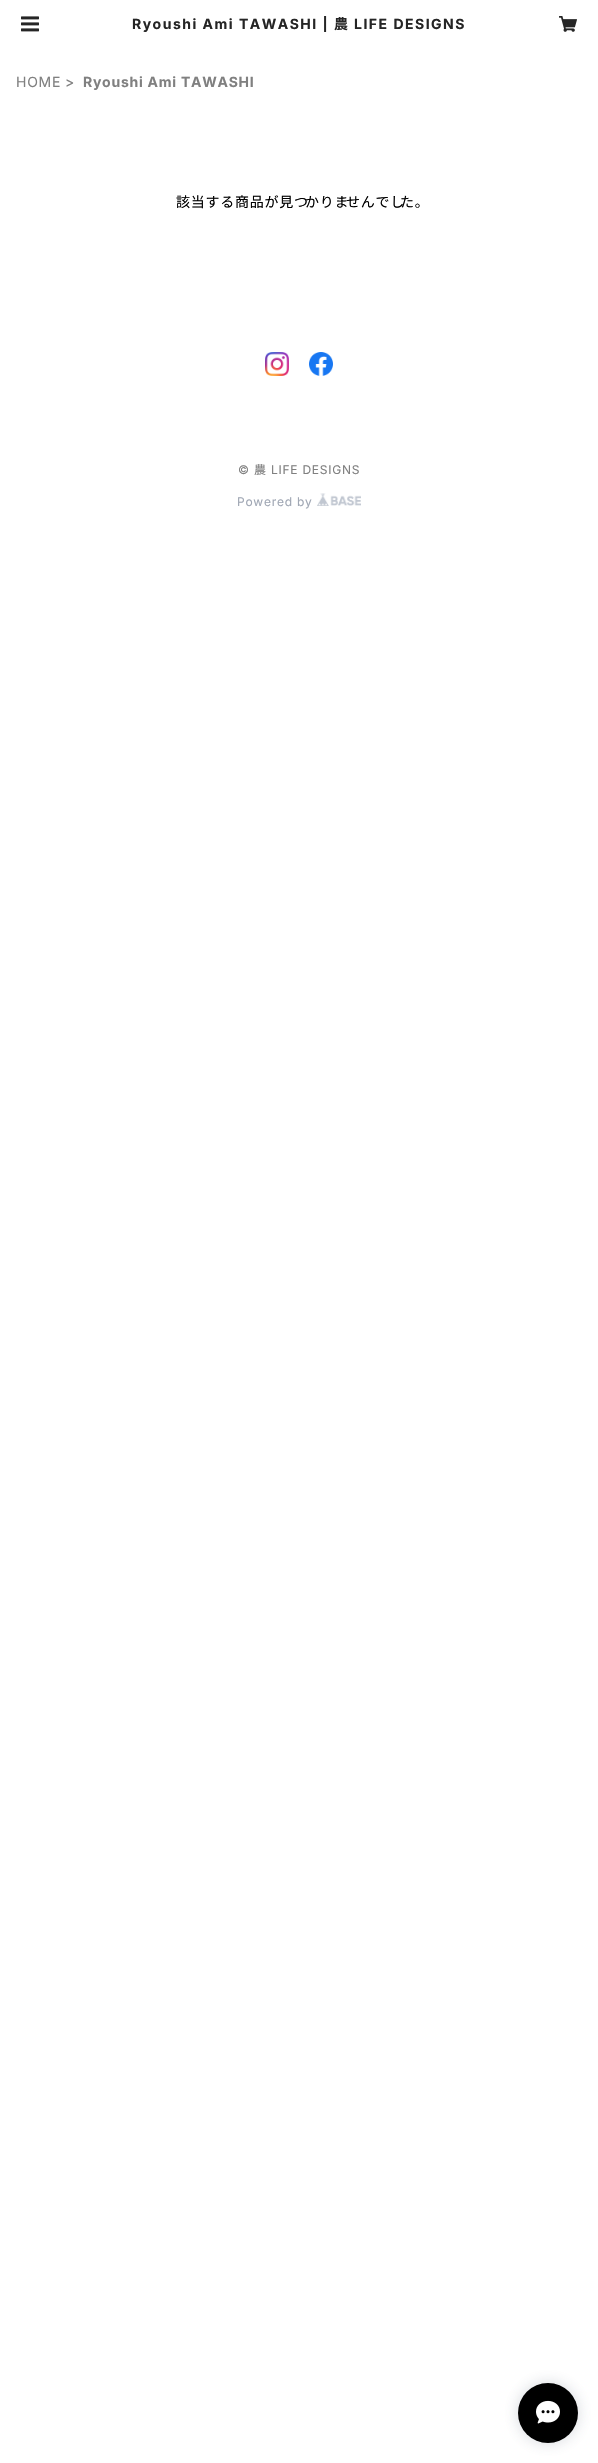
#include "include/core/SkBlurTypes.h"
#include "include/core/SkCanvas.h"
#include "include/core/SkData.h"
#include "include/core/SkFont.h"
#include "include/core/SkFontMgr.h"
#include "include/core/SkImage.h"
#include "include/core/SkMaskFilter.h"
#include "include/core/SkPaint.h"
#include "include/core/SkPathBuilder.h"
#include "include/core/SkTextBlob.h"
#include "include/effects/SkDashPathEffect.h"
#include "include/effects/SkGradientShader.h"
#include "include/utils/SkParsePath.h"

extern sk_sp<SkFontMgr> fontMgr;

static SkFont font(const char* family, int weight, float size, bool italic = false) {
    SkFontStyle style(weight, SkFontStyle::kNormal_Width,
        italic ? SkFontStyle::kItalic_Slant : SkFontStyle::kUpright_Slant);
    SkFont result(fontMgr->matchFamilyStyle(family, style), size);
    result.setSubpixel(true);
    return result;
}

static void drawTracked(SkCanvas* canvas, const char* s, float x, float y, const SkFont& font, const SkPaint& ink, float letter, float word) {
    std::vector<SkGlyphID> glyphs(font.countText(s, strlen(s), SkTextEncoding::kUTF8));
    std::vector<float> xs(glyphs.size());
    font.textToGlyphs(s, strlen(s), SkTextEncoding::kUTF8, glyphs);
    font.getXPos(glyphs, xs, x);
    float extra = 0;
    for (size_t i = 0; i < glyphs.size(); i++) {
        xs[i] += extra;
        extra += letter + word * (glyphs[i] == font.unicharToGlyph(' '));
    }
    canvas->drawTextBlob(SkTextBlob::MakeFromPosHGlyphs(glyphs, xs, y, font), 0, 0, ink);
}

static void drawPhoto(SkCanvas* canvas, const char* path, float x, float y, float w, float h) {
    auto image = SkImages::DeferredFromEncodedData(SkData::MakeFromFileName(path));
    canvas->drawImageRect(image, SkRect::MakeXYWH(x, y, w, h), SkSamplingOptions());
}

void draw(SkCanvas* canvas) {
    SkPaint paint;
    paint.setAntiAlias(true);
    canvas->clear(0xFFFFFFFF);
    drawPhoto(canvas, "assets/img1.png", 21, 16, 18, 16);
    canvas->save();
    canvas->clipRect(SkRect::MakeXYWH(132, 16, 334, 16));
    SkFont font1 = font("Inter", 700, 14);
    paint.setColor(0xFF252525);
    drawTracked(canvas, "Ryoushi Ami TAWASHI |", 132, 29, font1, paint, 1.5f, 0);
    canvas->restore();
    SkFont font2 = font("Noto Sans JP", 700, 14);
    drawTracked(canvas, "農", 334, 29, font2, paint, 1.5f, 0);
    drawTracked(canvas, "LIFE DESIGNS", 354, 29, font1, paint, 1.5f, 0);
    drawPhoto(canvas, "assets/img2.png", 559, 16, 18, 16);
    SkFont font3 = font("Inter", 400, 14);
    paint.setColor(0xFF808080);
    drawTracked(canvas, "HOME", 16, 87, font3, paint, 0.75f, 0);
    drawTracked(canvas, ">", 65, 87, font3, paint, 0.75f, 0);
    drawTracked(canvas, "Ryoushi Ami TAWASHI", 83, 87, font1, paint, 0.75f, 0);
    SkFont font4 = font("Noto Sans JP", 400, 14);
    paint.setColor(0xFF000000);
    drawTracked(canvas, "該当する商品が見つ", 176, 207, font4, paint, 0.75f, 0);
    drawTracked(canvas, "かりま", 305, 207, font4, paint, 0.75f, 0);
    drawTracked(canvas, "せんでし", 346, 207, font4, paint, 0.75f, 0);
    drawTracked(canvas, "た。", 400, 207, font4, paint, 0.75f, 0);
    drawPhoto(canvas, "assets/img3.png", 265, 352, 24, 24);
    drawPhoto(canvas, "assets/img4.png", 309, 352, 24, 24);
    SkFont font5 = font("Inter", 400, 12);
    paint.setColor(0xFF808080);
    drawTracked(canvas, "©", 238, 474, font5, paint, 0.75f, 0);
    SkFont font6 = font("Noto Sans JP", 400, 12);
    drawTracked(canvas, "農", 254, 474, font6, paint, 0.75f, 0);
    drawTracked(canvas, "LIFE DESIGNS", 271, 474, font5, paint, 0.75f, 0);
    paint.setColor(0xFFA0A7B4);
    drawTracked(canvas, "Powered by", 237, 506, font5, paint, 0.75f, 0);
    drawPhoto(canvas, "assets/img5.png", 317, 493, 44, 13);
    paint.setColor(0x33334258);
    paint.setMaskFilter(SkMaskFilter::MakeBlur(kNormal_SkBlurStyle, 7.5f));
    canvas->drawRoundRect(SkRect::MakeXYWH(518, 2383, 60, 60), 30, 30, paint);
    paint.setMaskFilter(nullptr);
    paint.setColor(0xFF000000);
    canvas->drawCircle(548, 2413, 30, paint);
    drawPhoto(canvas, "assets/img6.png", 536, 2400, 24, 24);
}
